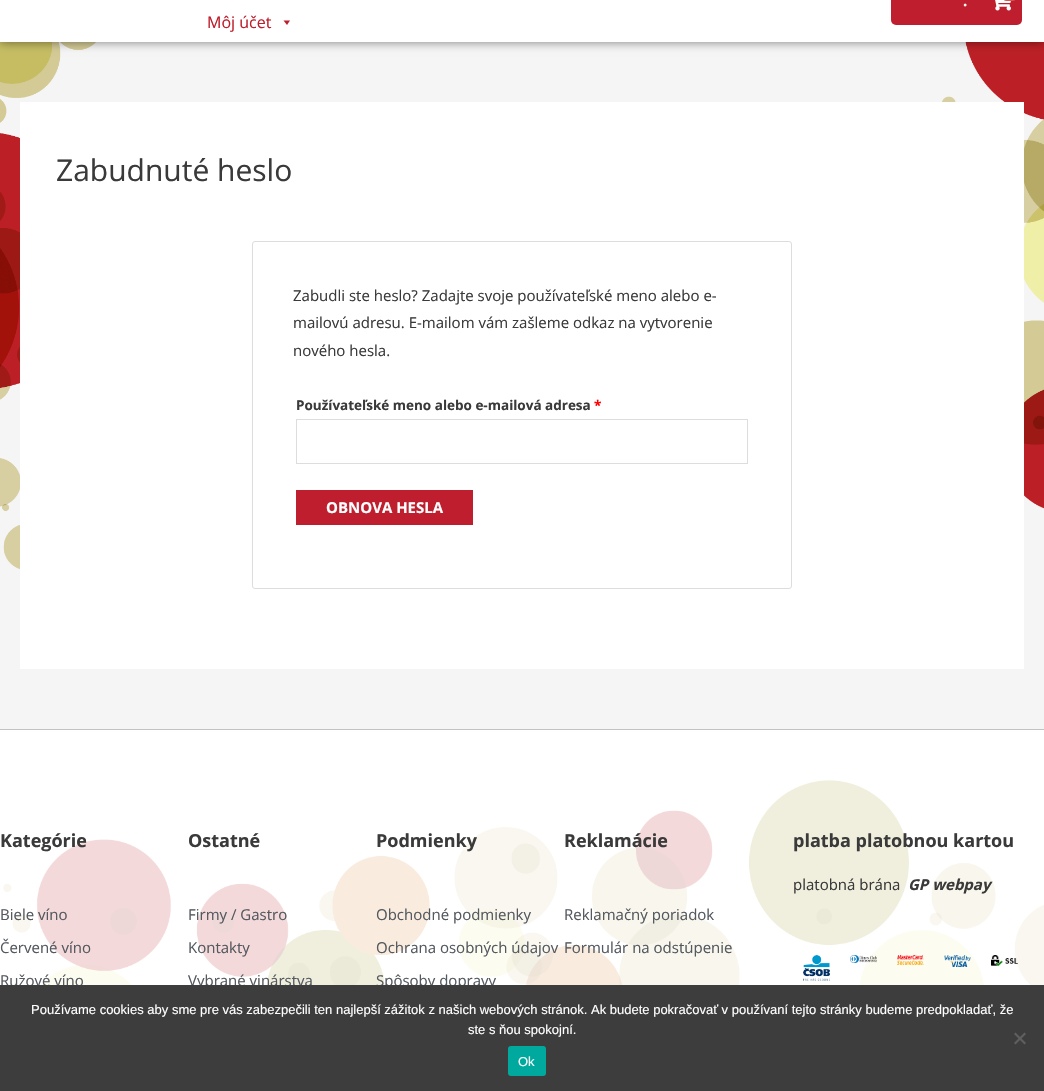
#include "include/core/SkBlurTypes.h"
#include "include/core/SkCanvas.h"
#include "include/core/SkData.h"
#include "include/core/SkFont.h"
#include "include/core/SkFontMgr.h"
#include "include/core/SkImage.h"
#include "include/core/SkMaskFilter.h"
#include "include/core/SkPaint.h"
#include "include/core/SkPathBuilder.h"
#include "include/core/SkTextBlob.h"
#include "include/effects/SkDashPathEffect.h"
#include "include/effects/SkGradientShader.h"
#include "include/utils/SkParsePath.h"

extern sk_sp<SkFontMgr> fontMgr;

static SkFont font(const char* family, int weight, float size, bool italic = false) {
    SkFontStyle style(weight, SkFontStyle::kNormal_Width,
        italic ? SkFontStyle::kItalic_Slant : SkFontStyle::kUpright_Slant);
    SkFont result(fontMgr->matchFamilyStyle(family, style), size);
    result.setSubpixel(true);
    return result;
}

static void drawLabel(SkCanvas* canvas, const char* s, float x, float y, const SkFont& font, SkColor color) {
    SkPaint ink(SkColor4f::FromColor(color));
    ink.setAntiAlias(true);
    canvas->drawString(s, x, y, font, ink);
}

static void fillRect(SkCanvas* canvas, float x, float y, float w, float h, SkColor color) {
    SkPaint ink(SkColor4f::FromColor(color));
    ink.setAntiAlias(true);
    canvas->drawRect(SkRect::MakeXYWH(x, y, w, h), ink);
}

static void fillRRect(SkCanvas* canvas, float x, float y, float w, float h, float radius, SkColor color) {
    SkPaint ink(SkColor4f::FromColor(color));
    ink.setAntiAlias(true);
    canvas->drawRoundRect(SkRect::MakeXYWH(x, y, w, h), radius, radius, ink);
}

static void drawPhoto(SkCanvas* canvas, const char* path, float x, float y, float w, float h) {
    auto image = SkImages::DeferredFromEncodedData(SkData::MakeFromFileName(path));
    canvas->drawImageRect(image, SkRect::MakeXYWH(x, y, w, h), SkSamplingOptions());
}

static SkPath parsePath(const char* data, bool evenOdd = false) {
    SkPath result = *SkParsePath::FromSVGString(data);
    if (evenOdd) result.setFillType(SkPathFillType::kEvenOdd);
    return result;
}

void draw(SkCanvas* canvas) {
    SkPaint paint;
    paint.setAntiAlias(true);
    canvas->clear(0xFFF5F5F5);
    drawPhoto(canvas, "assets/img1.png", 0, 42, 1044, 528);
    paint.setColor(0x80000000);
    paint.setMaskFilter(SkMaskFilter::MakeBlur(kNormal_SkBlurStyle, 5));
    canvas->drawRect(SkRect::MakeXYWH(0, -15, 1044, 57), paint);
    paint.setMaskFilter(nullptr);
    fillRect(canvas, 0, 0, 1044, 42, 0xFFFFFFFF);
    fillRRect(canvas, 891, -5, 131, 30, 5, 0xFFBE1E2D);
    SkFont font1 = font("Open Sans", 700, 15);
    drawLabel(canvas, ".", 963, 6, font1, 0xFFF5F5F5);
    drawPhoto(canvas, "assets/img2.png", 995, 0, 17, 11);
    fillRRect(canvas, 1002, -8, 15, 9, 7.5f, 0xFFD9534F);
    SkFont font2 = font("Open Sans", 400, 16);
    drawLabel(canvas, "Môj účet", 207, 28, font2, 0xFFBE1E2D);
    paint.setColor(0xFFBE1E2D);
    canvas->drawPath(parsePath("M290 20.5L287 25L283.5 20.5Z"), paint);
    fillRect(canvas, 20, 102, 1004, 567, 0xFFFFFFFF);
    SkFont font3 = font("Open Sans", 400, 30);
    drawLabel(canvas, "Zabudnuté heslo", 56, 181, font3, 0xFF3A3A3A);
    paint.setStroke(true);
    paint.setStrokeWidth(1);
    paint.setColor(0xFFDDDDDD);
    canvas->drawRoundRect(SkRect::MakeXYWH(252.5f, 241.5f, 539, 347), 2.5f, 2.5f, paint);
    SkFont font4 = font("Open Sans", 400, 15);
    drawLabel(canvas, "Zabudli ste heslo? Zadajte svoje používateľské meno alebo e-", 293, 301, font4, 0xFF3A3A3A);
    drawLabel(canvas, "mailovú adresu. E-mailom vám zašleme odkaz na vytvorenie", 293, 328, font4, 0xFF3A3A3A);
    drawLabel(canvas, "nového hesla.", 293, 356, font4, 0xFF3A3A3A);
    SkFont font5 = font("Open Sans", 700, 13.5f);
    drawLabel(canvas, "Používateľské meno alebo e-mailová adresa", 296, 410, font5, 0xFF3A3A3A);
    drawLabel(canvas, "*", 594, 410, font5, 0xFFFF0000);
    canvas->drawRect(SkRect::MakeXYWH(296.5f, 419.5f, 451, 44), paint);
    fillRect(canvas, 296, 490, 177, 35, 0xFFBE1E2D);
    drawLabel(canvas, "OBNOVA HESLA", 326, 513, font1, 0xFFFFFFFF);
    fillRect(canvas, 0, 730, 1044, 255, 0xFFFFFFFF);
    drawPhoto(canvas, "assets/img3.png", 3, 780, 1041, 205);
    fillRect(canvas, 0, 729, 1044, 1, 0xFFC2C2C2);
    SkFont font6 = font("Open Sans", 700, 18);
    drawLabel(canvas, "Kategórie", 0, 847, font6, 0xFF3A3A3A);
    drawLabel(canvas, "Biele víno", 0, 920, font4, 0xFF54595F);
    drawLabel(canvas, "Červené víno", 0, 953, font4, 0xFF54595F);
    drawLabel(canvas, "Ružové víno", 0, 986, font4, 0xFF54595F);
    drawLabel(canvas, "Ostatné", 188, 847, font6, 0xFF3A3A3A);
    drawLabel(canvas, "Firmy / Gastro", 188, 920, font4, 0xFF54595F);
    drawLabel(canvas, "Kontakty", 188, 953, font4, 0xFF54595F);
    drawLabel(canvas, "Vybrané vinárstva", 188, 986, font4, 0xFF54595F);
    drawLabel(canvas, "Podmienky", 376, 847, font6, 0xFF3A3A3A);
    drawLabel(canvas, "Obchodné podmienky", 376, 920, font4, 0xFF54595F);
    drawLabel(canvas, "Ochrana osobných údajov", 376, 953, font4, 0xFF54595F);
    drawLabel(canvas, "Spôsoby dopravy", 376, 986, font4, 0xFF54595F);
    drawLabel(canvas, "Reklamácie", 564, 847, font6, 0xFF3A3A3A);
    drawLabel(canvas, "Reklamačný poriadok", 564, 920, font4, 0xFF54595F);
    drawLabel(canvas, "Formulár na odstúpenie", 564, 953, font4, 0xFF54595F);
    drawLabel(canvas, "platba platobnou kartou", 793, 847, font6, 0xFF3A3A3A);
    drawLabel(canvas, "platobná brána", 793, 890, font4, 0xFF3A3A3A);
    SkFont font7 = font("Open Sans", 700, 15, true);
    drawLabel(canvas, "GP webpay", 908, 890, font7, 0xFF3A3A3A);
    drawPhoto(canvas, "assets/img4.png", 803, 955, 27, 26);
    drawPhoto(canvas, "assets/img5.png", 850, 955, 27, 8);
    drawPhoto(canvas, "assets/img6.png", 897, 955, 27, 10);
    drawPhoto(canvas, "assets/img7.png", 944, 955, 27, 12);
    drawPhoto(canvas, "assets/img8.png", 991, 955, 27, 11);
    fillRect(canvas, 0, 985, 1044, 106, 0xFF3D3D3D);
    SkFont font8 = font("Liberation Sans", 400, 13);
    drawLabel(canvas, "Používame cookies aby sme pre vás zabezpečili ten najlepší zážitok z našich webových stránok. Ak budete pokračovať v používaní tejto stránky budeme predpokladať, že", 31, 1014, font8, 0xFFFFFFFF);
    drawLabel(canvas, "ste s ňou spokojní.", 468, 1034, font8, 0xFFFFFFFF);
    paint.setStroke(false);
    paint.setColor(0xFF5F5F5F);
    canvas->drawPath(parsePath("M1024.5 1032.5L1026 1034L1015.5 1044.5L1014 1043Z"), paint);
    canvas->drawPath(parsePath("M1014 1034L1015.5 1032.5L1026 1043L1024.5 1044.5Z"), paint);
    fillRRect(canvas, 508, 1046, 38, 30, 3, 0xFF00A99D);
    drawLabel(canvas, "Ok", 518, 1066, font8, 0xFFFFFFFF);
}
